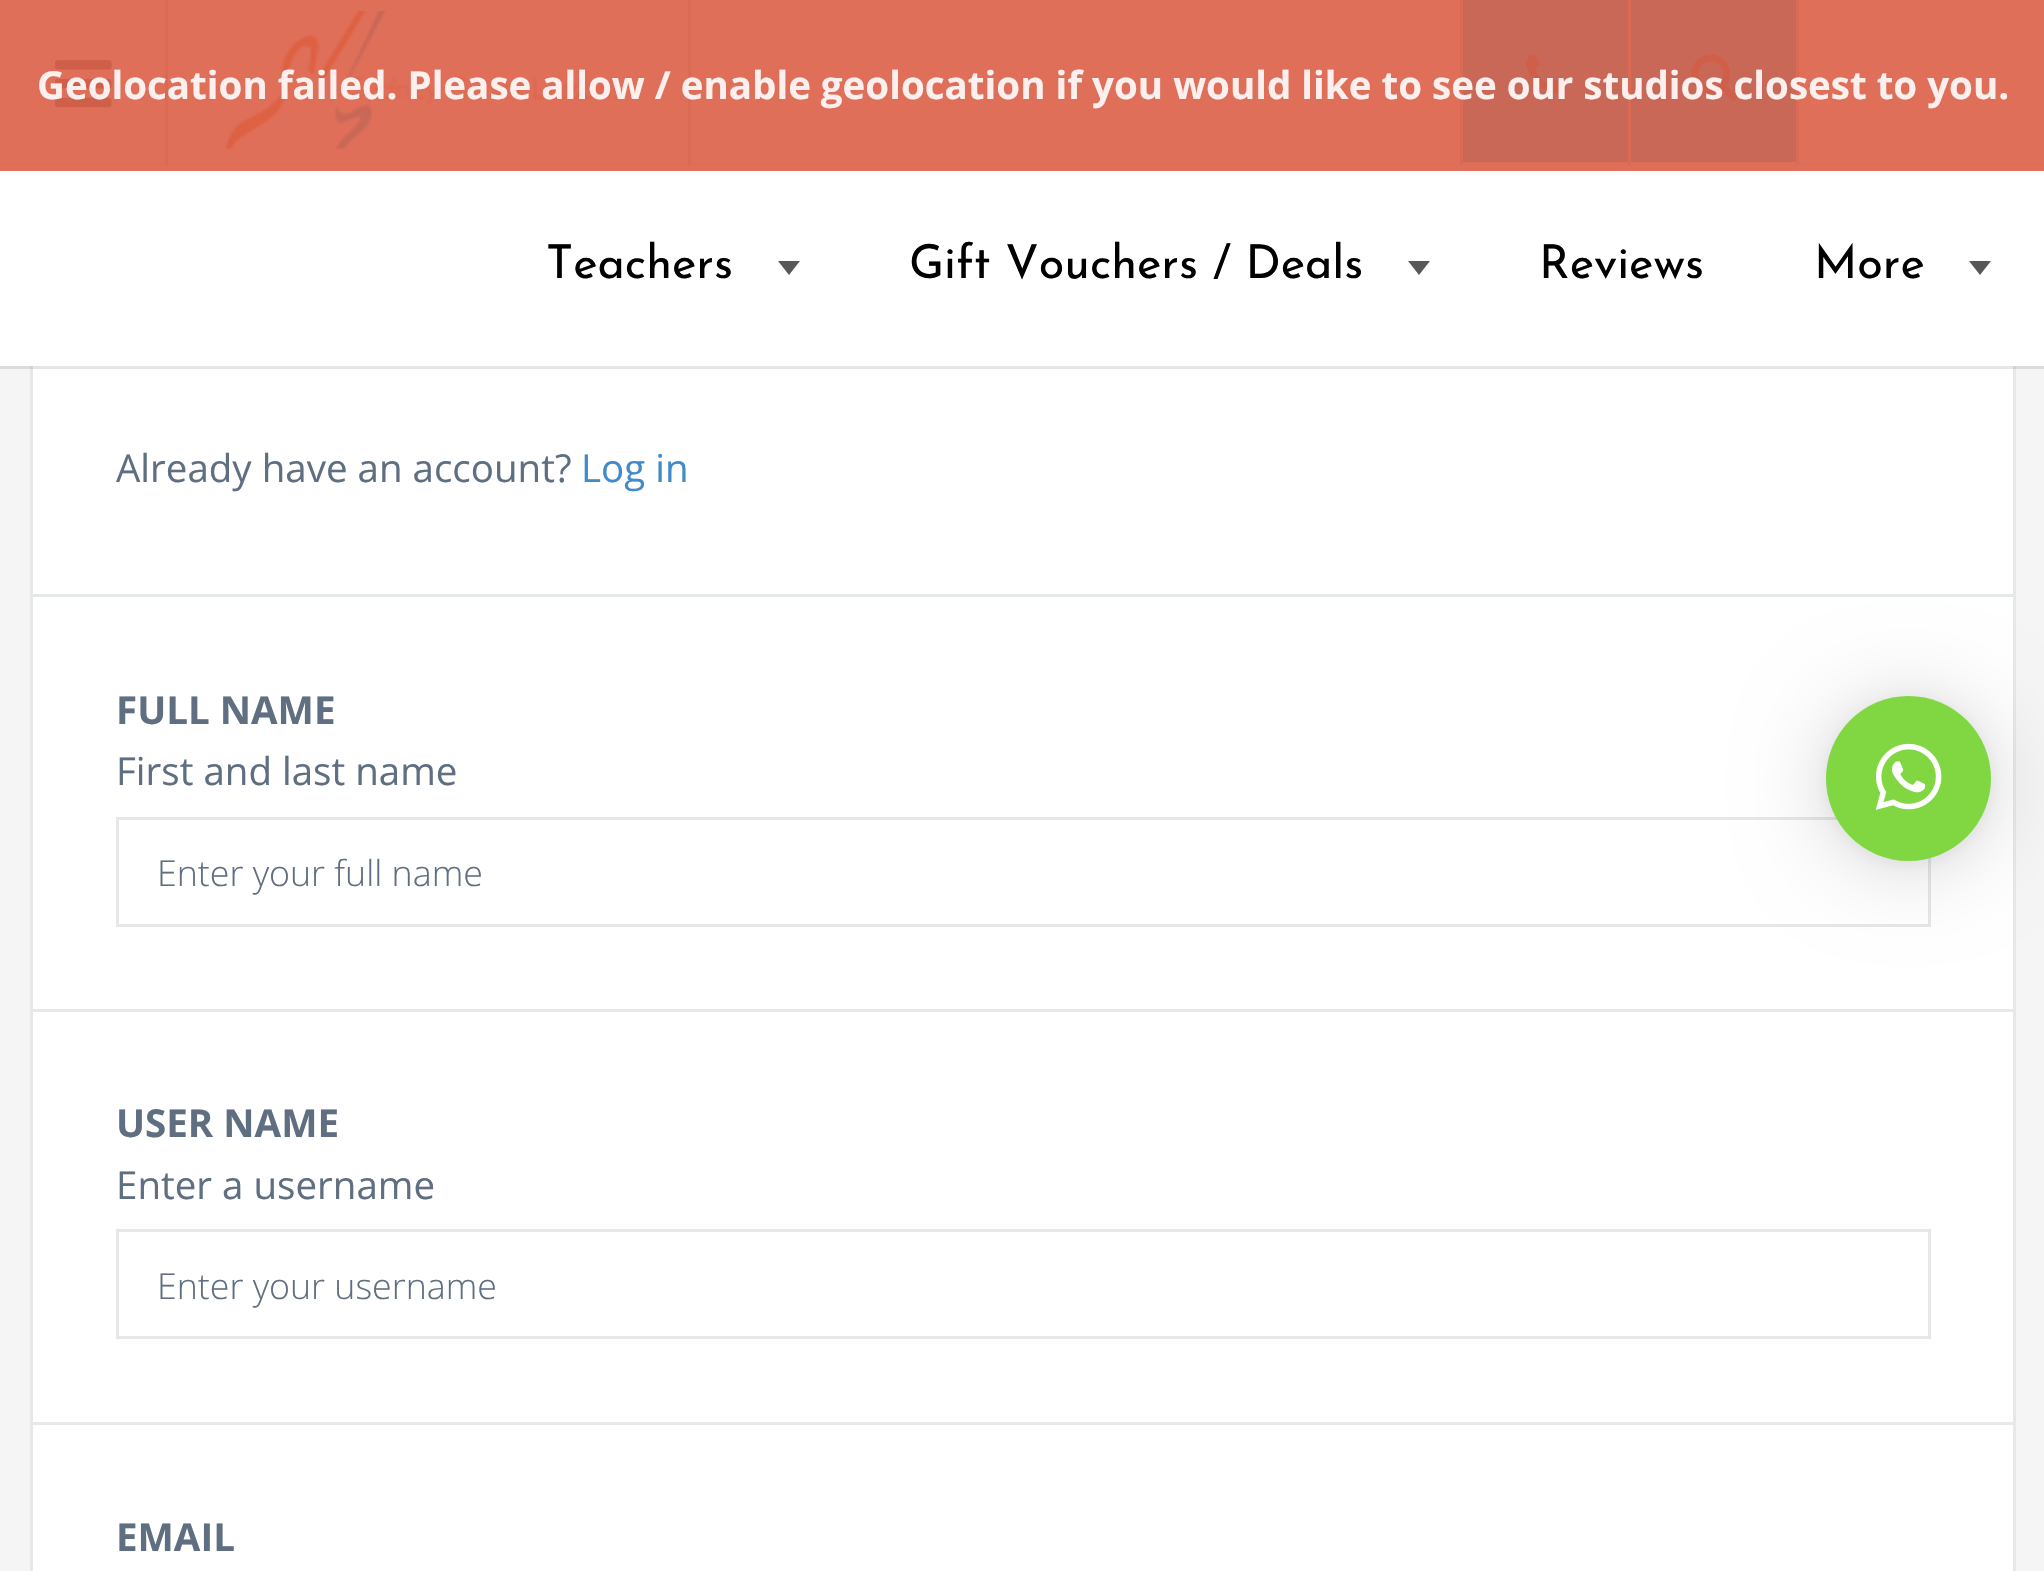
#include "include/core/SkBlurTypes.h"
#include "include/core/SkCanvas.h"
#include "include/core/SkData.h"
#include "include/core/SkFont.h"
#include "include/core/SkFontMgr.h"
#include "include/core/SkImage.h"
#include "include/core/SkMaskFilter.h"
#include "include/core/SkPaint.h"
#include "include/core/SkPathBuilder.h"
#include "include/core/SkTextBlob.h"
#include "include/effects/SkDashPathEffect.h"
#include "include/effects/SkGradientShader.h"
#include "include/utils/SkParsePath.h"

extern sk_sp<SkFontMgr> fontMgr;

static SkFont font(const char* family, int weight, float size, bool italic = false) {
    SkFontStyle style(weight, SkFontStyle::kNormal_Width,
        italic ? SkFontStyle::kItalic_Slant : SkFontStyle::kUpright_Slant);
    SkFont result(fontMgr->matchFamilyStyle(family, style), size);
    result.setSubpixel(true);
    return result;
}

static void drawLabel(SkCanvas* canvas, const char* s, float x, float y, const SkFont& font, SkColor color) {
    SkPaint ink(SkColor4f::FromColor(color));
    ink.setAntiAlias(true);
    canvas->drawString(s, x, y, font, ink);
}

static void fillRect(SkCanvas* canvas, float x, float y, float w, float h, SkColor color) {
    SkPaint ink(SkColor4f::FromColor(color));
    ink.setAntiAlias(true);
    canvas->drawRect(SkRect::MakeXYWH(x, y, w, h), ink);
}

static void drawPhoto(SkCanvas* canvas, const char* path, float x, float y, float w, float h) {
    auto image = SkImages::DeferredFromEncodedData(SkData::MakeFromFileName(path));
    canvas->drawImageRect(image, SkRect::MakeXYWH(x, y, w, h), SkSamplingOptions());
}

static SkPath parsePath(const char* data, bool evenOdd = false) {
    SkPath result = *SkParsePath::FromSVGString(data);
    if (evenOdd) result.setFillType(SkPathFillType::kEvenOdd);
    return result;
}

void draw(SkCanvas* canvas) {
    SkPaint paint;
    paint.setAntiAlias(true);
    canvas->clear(0xFFF5F5F5);
    fillRect(canvas, 33, 366, 1980, 1205, 0xFFFFFFFF);
    paint.setStroke(true);
    paint.setStrokeWidth(3);
    paint.setColor(0xFFE6E9EA);
    canvas->drawRect(SkRect::MakeXYWH(31.5f, 229.5f, 1983, 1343), paint);
    paint.setColor(0x0D000000);
    canvas->drawRect(SkRect::MakeXYWH(-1.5f, -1.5f, 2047, 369), paint);
    fillRect(canvas, 0, 0, 2044, 366, 0xFFFFFFFF);
    canvas->drawRect(SkRect::MakeXYWH(-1.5f, 163.5f, 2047, 204), paint);
    fillRect(canvas, 165, 0, 3, 165, 0xFFCCCCCC);
    drawPhoto(canvas, "assets/img1.png", 55, 60, 57, 48);
    fillRect(canvas, 688, 0, 3, 165, 0xFFCCCCCC);
    drawPhoto(canvas, "assets/img2.png", 224, 11, 399, 139);
    fillRect(canvas, 1628, 0, 3, 165, 0xFFCCCCCC);
    fillRect(canvas, 1460, 0, 3, 165, 0xFFCCCCCC);
    fillRect(canvas, 1463, 0, 165, 162, 0xFF26B0E4);
    drawPhoto(canvas, "assets/img3.png", 1526, 54, 40, 40);
    fillRect(canvas, 1796, 0, 3, 165, 0xFFCCCCCC);
    fillRect(canvas, 1631, 0, 165, 162, 0xFF26B0E4);
    drawPhoto(canvas, "assets/img4.png", 1691, 54, 47, 47);
    fillRect(canvas, 0, 0, 2044, 171, 0xE6DB5F47);
    SkFont font1 = font("Open Sans", 700, 38.5f);
    drawLabel(canvas, "Geolocation failed. Please allow / enable geolocation if you would like to see our studios closest to you.", 37, 99, font1, 0xFFFBF0EE);
    SkFont font2 = font("Josefin Sans", 100, 46.75f);
    drawLabel(canvas, "Teachers", 546, 278, font2, 0xFF000000);
    paint.setStroke(false);
    paint.setColor(0xFF575958);
    canvas->drawPath(parsePath("M778 261H800L789 275Z"), paint);
    drawLabel(canvas, "Gift Vouchers / Deals", 909, 278, font2, 0xFF000000);
    canvas->drawPath(parsePath("M1408 261H1430L1419 275Z"), paint);
    drawLabel(canvas, "Reviews", 1539, 278, font2, 0xFF000000);
    drawLabel(canvas, "More", 1814, 278, font2, 0xFF000000);
    canvas->drawPath(parsePath("M1969 261H1991L1980 275Z"), paint);
    fillRect(canvas, 33, 594, 1980, 3, 0xFFE6E9EA);
    SkFont font3 = font("Open Sans", 400, 38.5f);
    drawLabel(canvas, "Already have an account?", 116, 482, font3, 0xFF5F6F81);
    drawLabel(canvas, "Log in", 581, 482, font3, 0xFF428BCA);
    fillRect(canvas, 33, 1009, 1980, 3, 0xFFE6E9EA);
    drawLabel(canvas, "FULL NAME", 116, 724, font1, 0xFF5F6F81);
    drawLabel(canvas, "First and last name", 116, 785, font3, 0xFF5F6F81);
    paint.setStroke(true);
    paint.setColor(0xFFE5E7E9);
    canvas->drawRect(SkRect::MakeXYWH(117.5f, 818.5f, 1812, 107), paint);
    SkFont font4 = font("Open Sans", 300, 35.75f);
    drawLabel(canvas, "Enter your full name", 157, 886, font4, 0xFF5F6F81);
    fillRect(canvas, 33, 1422, 1980, 3, 0xFFE6E9EA);
    drawLabel(canvas, "USER NAME", 116, 1137, font1, 0xFF5F6F81);
    drawLabel(canvas, "Enter a username", 116, 1199, font3, 0xFF5F6F81);
    canvas->drawRect(SkRect::MakeXYWH(117.5f, 1230.5f, 1812, 107), paint);
    drawLabel(canvas, "Enter your username", 157, 1299, font4, 0xFF5F6F81);
    drawLabel(canvas, "EMAIL", 116, 1551, font1, 0xFF5F6F81);
    paint.setStroke(false);
    paint.setColor(0x29000000);
    paint.setMaskFilter(SkMaskFilter::MakeBlur(kNormal_SkBlurStyle, 44));
    canvas->drawRoundRect(SkRect::MakeXYWH(1826, 701, 165, 165), 82.5f, 82.5f, paint);
    paint.setMaskFilter(nullptr);
    paint.setColor(0x0F000000);
    paint.setMaskFilter(SkMaskFilter::MakeBlur(kNormal_SkBlurStyle, 8));
    canvas->drawRoundRect(SkRect::MakeXYWH(1826, 699, 165, 165), 82.5f, 82.5f, paint);
    paint.setMaskFilter(nullptr);
    paint.setColor(0xFF81D742);
    canvas->drawCircle(1908.5f, 778.5f, 82.5f, paint);
    drawPhoto(canvas, "assets/img5.png", 1875, 743, 67, 67);
}
